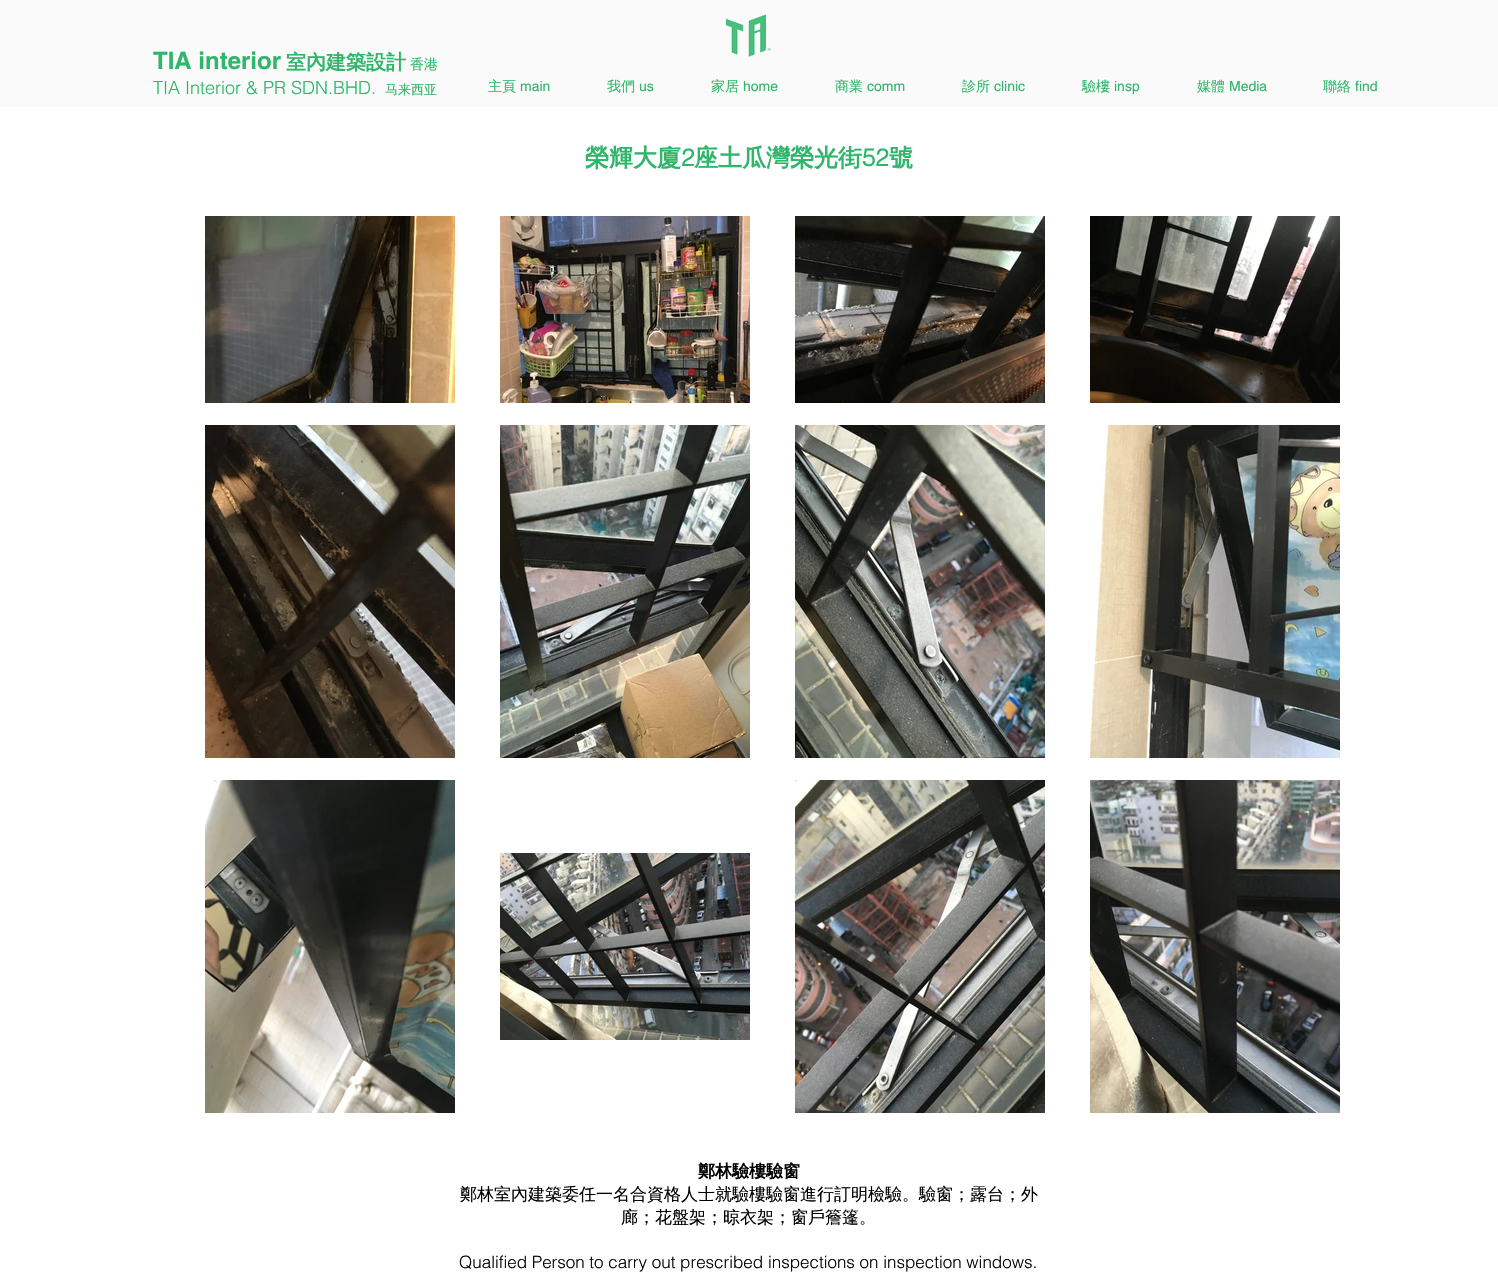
#include "include/core/SkBlurTypes.h"
#include "include/core/SkCanvas.h"
#include "include/core/SkData.h"
#include "include/core/SkFont.h"
#include "include/core/SkFontMgr.h"
#include "include/core/SkImage.h"
#include "include/core/SkMaskFilter.h"
#include "include/core/SkPaint.h"
#include "include/core/SkPathBuilder.h"
#include "include/core/SkTextBlob.h"
#include "include/effects/SkDashPathEffect.h"
#include "include/effects/SkGradientShader.h"
#include "include/utils/SkParsePath.h"

extern sk_sp<SkFontMgr> fontMgr;

static SkFont font(const char* family, int weight, float size, bool italic = false) {
    SkFontStyle style(weight, SkFontStyle::kNormal_Width,
        italic ? SkFontStyle::kItalic_Slant : SkFontStyle::kUpright_Slant);
    SkFont result(fontMgr->matchFamilyStyle(family, style), size);
    result.setSubpixel(true);
    return result;
}

static void drawLabel(SkCanvas* canvas, const char* s, float x, float y, const SkFont& font, SkColor color) {
    SkPaint ink(SkColor4f::FromColor(color));
    ink.setAntiAlias(true);
    canvas->drawString(s, x, y, font, ink);
}

static void fillRect(SkCanvas* canvas, float x, float y, float w, float h, SkColor color) {
    SkPaint ink(SkColor4f::FromColor(color));
    ink.setAntiAlias(true);
    canvas->drawRect(SkRect::MakeXYWH(x, y, w, h), ink);
}

static void drawPhoto(SkCanvas* canvas, const char* path, float x, float y, float w, float h) {
    auto image = SkImages::DeferredFromEncodedData(SkData::MakeFromFileName(path));
    canvas->drawImageRect(image, SkRect::MakeXYWH(x, y, w, h), SkSamplingOptions());
}

void draw(SkCanvas* canvas) {
    SkPaint paint;
    paint.setAntiAlias(true);
    canvas->clear(0xFFFFFFFF);
    fillRect(canvas, 0, 0, 1498, 107, 0xFFFAFAFA);
    drawPhoto(canvas, "assets/img1.png", 725, 14, 46, 43);
    SkFont font1 = font("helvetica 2", 700, 24);
    drawLabel(canvas, "TIA interior", 153, 69, font1, 0xFF2FB66A);
    SkFont font2 = font("WenQuanYi Zen Hei", 700, 20);
    drawLabel(canvas, "室內建築設計", 286, 69, font2, 0xFF2FB66A);
    SkFont font3 = font("WenQuanYi Zen Hei", 500, 14);
    drawLabel(canvas, "香港", 410, 69, font3, 0xFF2FB66A);
    SkFont font4 = font("helvetica", 300, 18);
    drawLabel(canvas, "TIA Interior & PR SDN.BHD.", 153, 94, font4, 0xFF2FB66A);
    SkFont font5 = font("WenQuanYi Zen Hei", 500, 13);
    drawLabel(canvas, "马来西亚", 385, 94, font5, 0xFF2FB66A);
    drawLabel(canvas, "主頁", 488, 91, font3, 0xFF2FB66A);
    SkFont font6 = font("helvetica", 400, 14);
    drawLabel(canvas, "main", 520, 91, font6, 0xFF2FB66A);
    drawLabel(canvas, "我們", 607, 91, font3, 0xFF2FB66A);
    drawLabel(canvas, "us", 639, 91, font6, 0xFF2FB66A);
    drawLabel(canvas, "家居", 711, 91, font3, 0xFF2FB66A);
    drawLabel(canvas, "home", 743, 91, font6, 0xFF2FB66A);
    drawLabel(canvas, "商業", 835, 91, font3, 0xFF2FB66A);
    drawLabel(canvas, "comm", 867, 91, font6, 0xFF2FB66A);
    drawLabel(canvas, "診所", 962, 91, font3, 0xFF2FB66A);
    drawLabel(canvas, "clinic", 994, 91, font6, 0xFF2FB66A);
    drawLabel(canvas, "驗樓", 1082, 91, font3, 0xFF2FB66A);
    drawLabel(canvas, "insp", 1114, 91, font6, 0xFF2FB66A);
    drawLabel(canvas, "媒體", 1197, 91, font3, 0xFF2FB66A);
    drawLabel(canvas, "Media", 1229, 91, font6, 0xFF2FB66A);
    drawLabel(canvas, "聯絡", 1323, 91, font3, 0xFF2FB66A);
    drawLabel(canvas, "find", 1355, 91, font6, 0xFF2FB66A);
    SkFont font7 = font("WenQuanYi Zen Hei", 700, 24);
    drawLabel(canvas, "榮輝大廈", 585, 166, font7, 0xFF2FB66A);
    SkFont font8 = font("helvetica", 700, 24);
    drawLabel(canvas, "2", 681, 166, font8, 0xFF2FB66A);
    drawLabel(canvas, "座土瓜灣榮光街", 694, 166, font7, 0xFF2FB66A);
    drawLabel(canvas, "52", 862, 166, font8, 0xFF2FB66A);
    drawLabel(canvas, "號", 889, 166, font7, 0xFF2FB66A);
    drawPhoto(canvas, "assets/img2.png", 205, 216, 250, 187);
    drawPhoto(canvas, "assets/img3.png", 500, 216, 250, 187);
    drawPhoto(canvas, "assets/img4.png", 795, 216, 250, 187);
    drawPhoto(canvas, "assets/img5.png", 1090, 216, 250, 187);
    drawPhoto(canvas, "assets/img6.png", 205, 425, 250, 333);
    drawPhoto(canvas, "assets/img7.png", 500, 425, 250, 333);
    drawPhoto(canvas, "assets/img8.png", 795, 425, 250, 333);
    drawPhoto(canvas, "assets/img9.png", 1090, 425, 250, 333);
    drawPhoto(canvas, "assets/img10.png", 205, 780, 250, 333);
    drawPhoto(canvas, "assets/img11.png", 500, 853, 250, 187);
    drawPhoto(canvas, "assets/img12.png", 795, 780, 250, 333);
    drawPhoto(canvas, "assets/img13.png", 1090, 780, 250, 333);
    SkFont font9 = font("WenQuanYi Zen Hei", 700, 17);
    drawLabel(canvas, "鄭林驗樓驗窗", 698, 1177, font9, 0xFF000000);
    SkFont font10 = font("WenQuanYi Zen Hei", 500, 17);
    drawLabel(canvas, "鄭林室內建築委任一名合資格人士就驗樓驗窗進行訂明檢驗。驗窗；露台；外", 460, 1200, font10, 0xFF000000);
    drawLabel(canvas, "廊；花盤架；晾衣架；窗戶簷篷。", 621, 1223, font10, 0xFF000000);
    SkFont font11 = font("helvetica", 300, 17);
    drawLabel(canvas, "Qualified Person to carry out prescribed inspections on inspection windows.", 459, 1268, font11, 0xFF000000);
}
